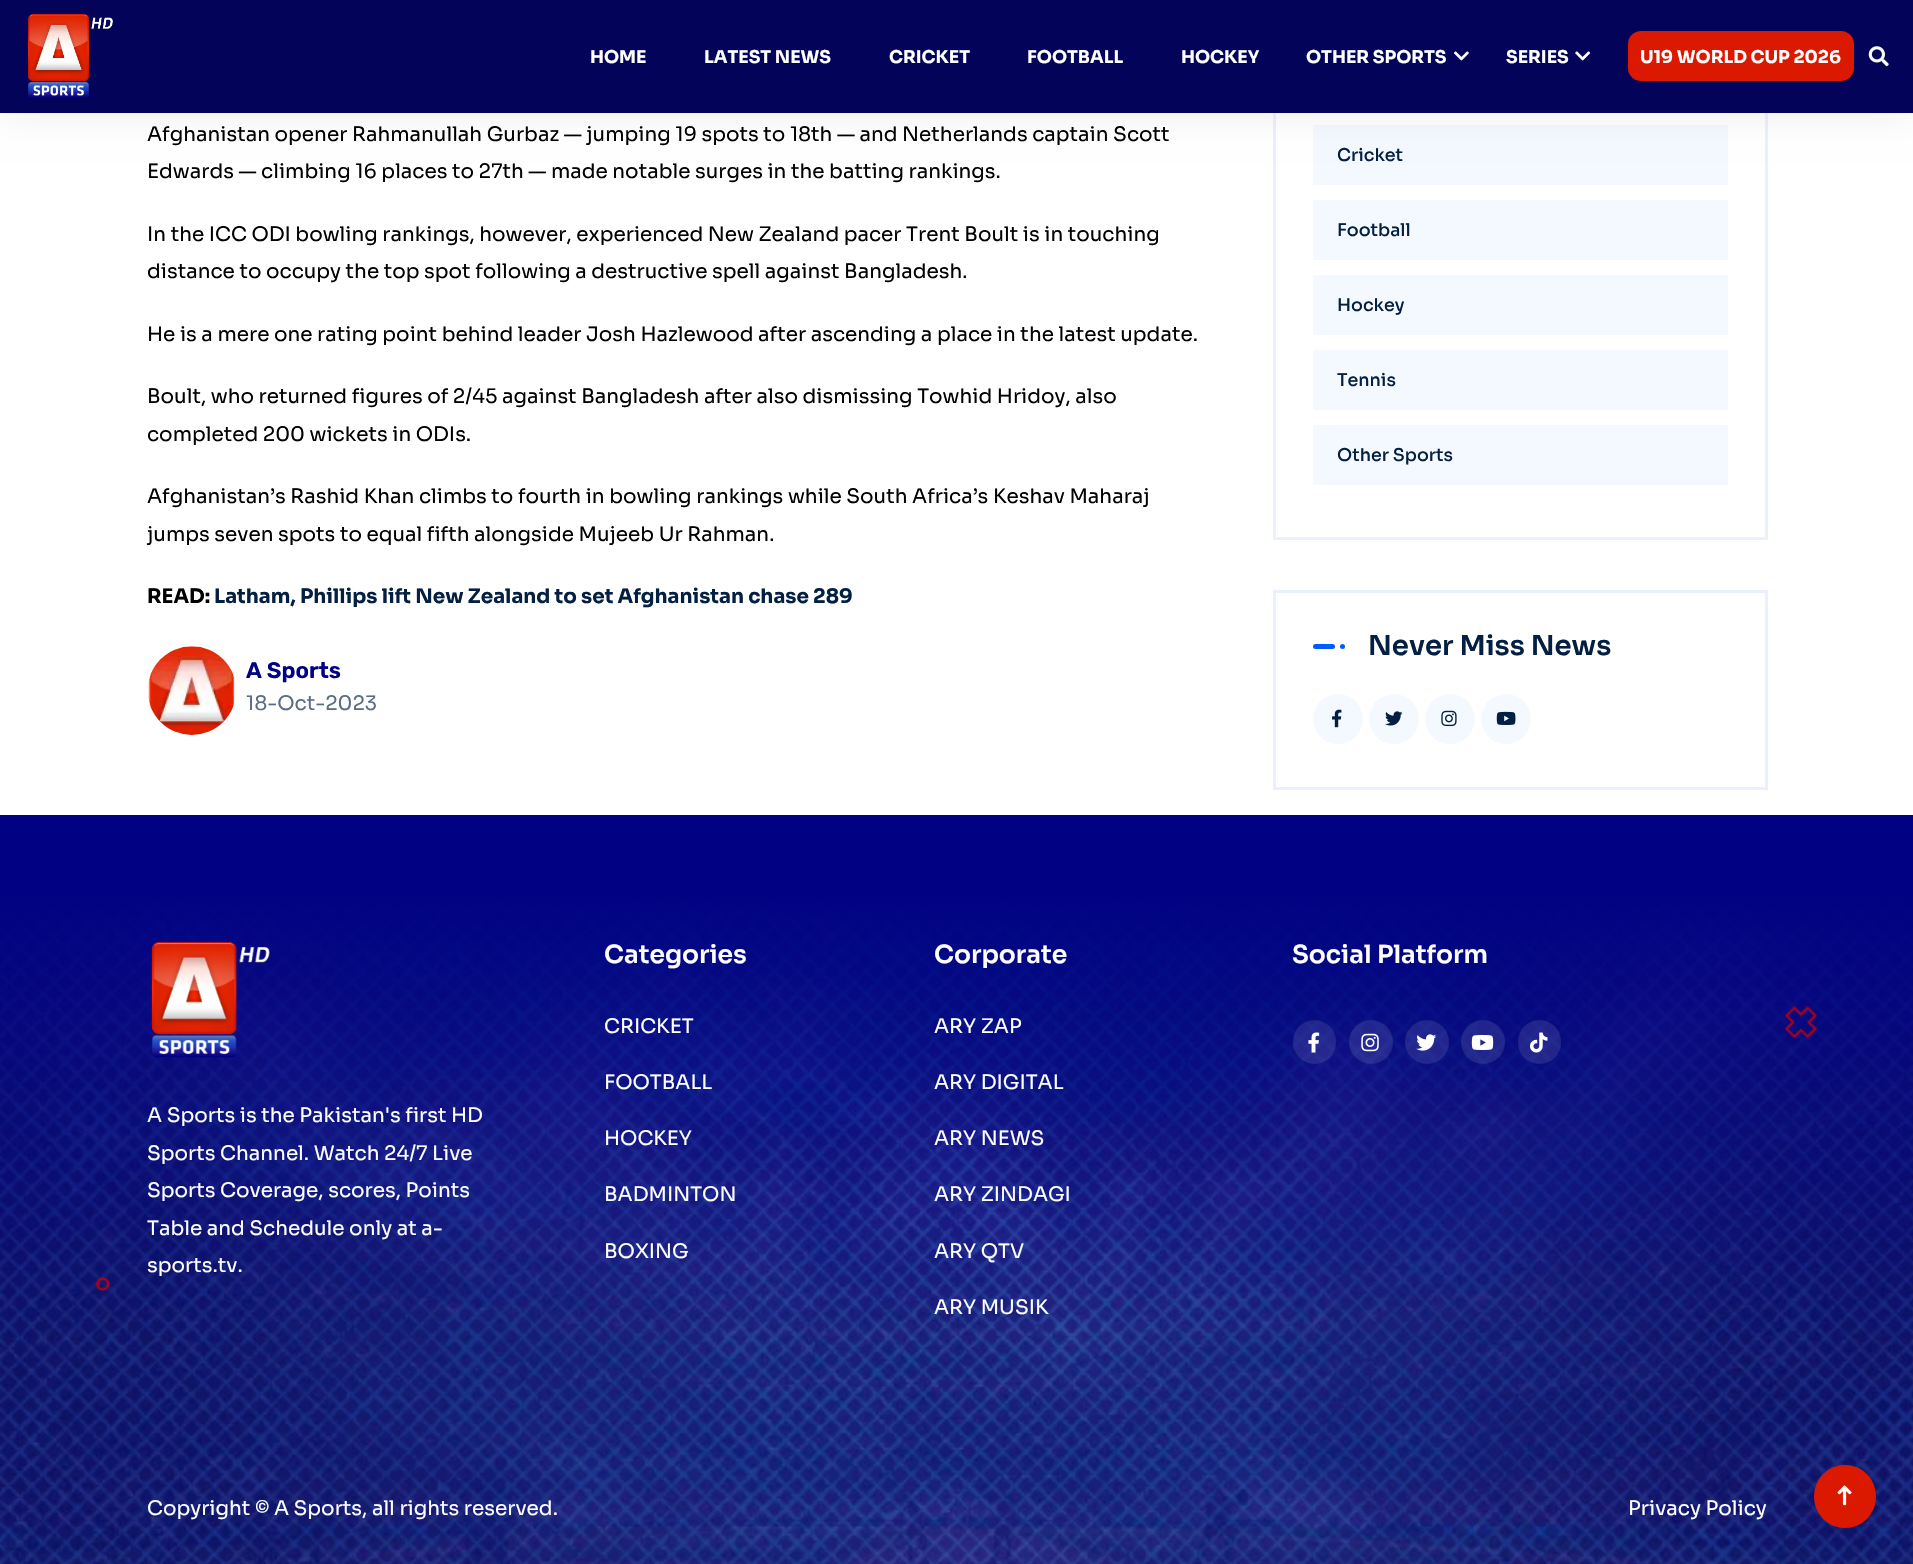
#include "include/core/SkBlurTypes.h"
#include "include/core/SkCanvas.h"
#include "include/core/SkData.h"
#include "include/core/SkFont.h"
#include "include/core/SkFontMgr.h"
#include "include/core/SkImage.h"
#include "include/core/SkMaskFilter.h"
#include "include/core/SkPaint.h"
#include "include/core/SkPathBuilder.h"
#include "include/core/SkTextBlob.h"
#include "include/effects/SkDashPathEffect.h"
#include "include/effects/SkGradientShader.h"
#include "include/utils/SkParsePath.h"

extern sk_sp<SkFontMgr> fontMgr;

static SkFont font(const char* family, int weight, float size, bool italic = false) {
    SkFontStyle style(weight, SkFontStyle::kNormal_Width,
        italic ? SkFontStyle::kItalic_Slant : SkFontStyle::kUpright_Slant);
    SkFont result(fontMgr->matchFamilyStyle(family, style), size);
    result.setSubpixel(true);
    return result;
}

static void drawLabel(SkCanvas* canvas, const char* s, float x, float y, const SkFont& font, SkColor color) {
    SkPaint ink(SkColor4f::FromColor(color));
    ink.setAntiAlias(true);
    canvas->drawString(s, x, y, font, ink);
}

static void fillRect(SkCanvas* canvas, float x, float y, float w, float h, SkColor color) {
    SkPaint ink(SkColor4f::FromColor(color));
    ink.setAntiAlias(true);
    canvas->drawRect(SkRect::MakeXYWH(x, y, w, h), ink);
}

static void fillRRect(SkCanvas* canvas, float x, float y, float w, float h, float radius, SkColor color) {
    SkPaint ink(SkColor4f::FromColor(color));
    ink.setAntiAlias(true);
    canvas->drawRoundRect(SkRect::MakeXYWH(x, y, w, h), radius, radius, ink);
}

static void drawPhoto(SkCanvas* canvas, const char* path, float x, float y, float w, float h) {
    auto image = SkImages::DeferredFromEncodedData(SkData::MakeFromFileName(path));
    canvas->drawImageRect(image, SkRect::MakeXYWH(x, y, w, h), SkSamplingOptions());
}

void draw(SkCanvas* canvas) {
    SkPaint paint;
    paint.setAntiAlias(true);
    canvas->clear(0xFFFFFFFF);
    paint.setStroke(true);
    paint.setStrokeWidth(3);
    paint.setColor(0xFFEBF0FF);
    canvas->drawRect(SkRect::MakeXYWH(1274.5f, 21.5f, 492, 517), paint);
    fillRect(canvas, 1313, 125, 415, 60, 0xFFF4F9FF);
    paint.setStroke(false);
    paint.setColor(0x0F000000);
    paint.setMaskFilter(SkMaskFilter::MakeBlur(kNormal_SkBlurStyle, 15.5f));
    canvas->drawRect(SkRect::MakeXYWH(0, 5, 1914, 113), paint);
    paint.setMaskFilter(nullptr);
    fillRect(canvas, 0, 0, 1913, 113, 0xFF030459);
    drawPhoto(canvas, "assets/img1.png", 28, 13, 85, 85);
    SkFont font1 = font("Sora", 700, 17.5f);
    drawLabel(canvas, "HOME", 590, 63, font1, 0xFFFFFFFF);
    drawLabel(canvas, "LATEST NEWS", 704, 63, font1, 0xFFFFFFFF);
    drawLabel(canvas, "CRICKET", 889, 63, font1, 0xFFFFFFFF);
    drawLabel(canvas, "FOOTBALL", 1027, 63, font1, 0xFFFFFFFF);
    drawLabel(canvas, "HOCKEY", 1181, 63, font1, 0xFFFFFFFF);
    drawLabel(canvas, "OTHER SPORTS", 1306, 63, font1, 0xFFFFFFFF);
    drawPhoto(canvas, "assets/img2.png", 1454, 51, 15, 10);
    drawLabel(canvas, "SERIES", 1506, 63, font1, 0xFFFFFFFF);
    drawPhoto(canvas, "assets/img3.png", 1575, 51, 15, 10);
    fillRRect(canvas, 1628, 31, 226, 50, 13, 0xFFDA1900);
    drawLabel(canvas, "U19 WORLD CUP 2026", 1640, 63, font1, 0xFFFFFFFF);
    drawPhoto(canvas, "assets/img4.png", 1868, 46, 21, 21);
    SkFont font2 = font("Sora", 400, 20);
    drawLabel(canvas, "Afghanistan opener Rahmanullah Gurbaz — jumping 19 spots to 18th — and Netherlands captain Scott", 147, 141, font2, 0xFF000000);
    drawLabel(canvas, "Edwards — climbing 16 places to 27th — made notable surges in the batting rankings.", 147, 178, font2, 0xFF000000);
    drawLabel(canvas, "In the ICC ODI bowling rankings, however, experienced New Zealand pacer Trent Boult is in touching", 147, 241, font2, 0xFF000000);
    drawLabel(canvas, "distance to occupy the top spot following a destructive spell against Bangladesh.", 147, 278, font2, 0xFF000000);
    drawLabel(canvas, "He is a mere one rating point behind leader Josh Hazlewood after ascending a place in the latest update.", 147, 341, font2, 0xFF000000);
    drawLabel(canvas, "Boult, who returned figures of 2/45 against Bangladesh after also dismissing Towhid Hridoy, also", 147, 403, font2, 0xFF000000);
    drawLabel(canvas, "completed 200 wickets in ODIs.", 147, 441, font2, 0xFF000000);
    drawLabel(canvas, "Afghanistan’s Rashid Khan climbs to fourth in bowling rankings while South Africa’s Keshav Maharaj", 147, 503, font2, 0xFF000000);
    drawLabel(canvas, "jumps seven spots to equal fifth alongside Mujeeb Ur Rahman.", 147, 541, font2, 0xFF000000);
    SkFont font3 = font("Sora", 700, 20);
    drawLabel(canvas, "READ:", 147, 603, font3, 0xFF000000);
    drawLabel(canvas, "Latham, Phillips lift New Zealand to set Afghanistan chase 289", 214, 603, font3, 0xFF031F42);
    drawPhoto(canvas, "assets/img5.png", 148, 646, 87, 89);
    SkFont font4 = font("Rubik", 600, 22.5f);
    drawLabel(canvas, "A Sports", 246, 678, font4, 0xFF000283);
    drawLabel(canvas, "18-Oct-2023", 246, 710, font2, 0xFF5B6D84);
    SkFont font5 = font("Sora", 500, 17.5f);
    drawLabel(canvas, "Cricket", 1337, 161, font5, 0xFF031F42);
    fillRect(canvas, 1313, 200, 415, 60, 0xFFF4F9FF);
    drawLabel(canvas, "Football", 1337, 236, font5, 0xFF031F42);
    fillRect(canvas, 1313, 275, 415, 60, 0xFFF4F9FF);
    drawLabel(canvas, "Hockey", 1337, 311, font5, 0xFF031F42);
    fillRect(canvas, 1313, 350, 415, 60, 0xFFF4F9FF);
    drawLabel(canvas, "Tennis", 1337, 386, font5, 0xFF031F42);
    fillRect(canvas, 1313, 425, 415, 60, 0xFFF4F9FF);
    drawLabel(canvas, "Other Sports", 1337, 461, font5, 0xFF031F42);
    paint.setStroke(true);
    paint.setColor(0xFFEBF0FF);
    canvas->drawRect(SkRect::MakeXYWH(1274.5f, 591.5f, 492, 197), paint);
    fillRRect(canvas, 1313, 644, 22, 5, 2.5f, 0xFF005BFF);
    paint.setStroke(false);
    paint.setColor(0xFF005BFF);
    canvas->drawCircle(1342.5f, 646.5f, 2.5f, paint);
    SkFont font6 = font("Sora", 600, 27.5f);
    drawLabel(canvas, "Never Miss News", 1368, 655, font6, 0xFF031F42);
    paint.setColor(0xFFF4F9FF);
    canvas->drawCircle(1338, 719, 25, paint);
    drawPhoto(canvas, "assets/img6.png", 1332, 709, 10, 19);
    canvas->drawCircle(1394, 719, 25, paint);
    drawPhoto(canvas, "assets/img7.png", 1385, 711, 18, 15);
    canvas->drawCircle(1450, 719, 25, paint);
    drawPhoto(canvas, "assets/img8.png", 1441, 710, 16, 17);
    canvas->drawCircle(1506, 719, 25, paint);
    drawPhoto(canvas, "assets/img9.png", 1496, 711, 20, 14);
    drawPhoto(canvas, "assets/img10.png", 0, 815, 1913, 749);
    SkFont font7 = font("Sora", 600, 25);
    drawLabel(canvas, "Categories", 604, 963, font7, 0xFFFFFFFF);
    drawLabel(canvas, "CRICKET", 604, 1033, font2, 0xFFFFFFFF);
    drawLabel(canvas, "FOOTBALL", 604, 1089, font2, 0xFFFFFFFF);
    drawLabel(canvas, "HOCKEY", 604, 1145, font2, 0xFFFFFFFF);
    drawLabel(canvas, "BADMINTON", 604, 1201, font2, 0xFFFFFFFF);
    drawLabel(canvas, "BOXING", 604, 1258, font2, 0xFFFFFFFF);
    drawLabel(canvas, "Corporate", 934, 963, font7, 0xFFFFFFFF);
    drawLabel(canvas, "ARY ZAP", 934, 1033, font2, 0xFFFFFFFF);
    drawLabel(canvas, "ARY DIGITAL", 934, 1089, font2, 0xFFFFFFFF);
    drawLabel(canvas, "ARY NEWS", 934, 1145, font2, 0xFFFFFFFF);
    drawLabel(canvas, "ARY ZINDAGI", 934, 1201, font2, 0xFFFFFFFF);
    drawLabel(canvas, "ARY QTV", 934, 1258, font2, 0xFFFFFFFF);
    drawLabel(canvas, "ARY MUSIK", 934, 1314, font2, 0xFFFFFFFF);
    drawLabel(canvas, "Social Platform", 1292, 963, font7, 0xFFFFFFFF);
    fillRRect(canvas, 1293, 1020, 43, 44, 21.5f, 0x1AFFFFFF);
    paint.setStroke(true);
    paint.setStrokeWidth(1);
    paint.setColor(0x1A09224B);
    canvas->drawRoundRect(SkRect::MakeXYWH(1293.5f, 1020.5f, 42, 43), 21, 21, paint);
    drawPhoto(canvas, "assets/img11.png", 1308, 1032, 12, 21);
    paint.setStroke(false);
    paint.setColor(0x1AFFFFFF);
    canvas->drawCircle(1371, 1042, 22, paint);
    paint.setStroke(true);
    paint.setColor(0x1A09224B);
    canvas->drawCircle(1371, 1042, 21.5f, paint);
    drawPhoto(canvas, "assets/img12.png", 1361, 1033, 18, 19);
    paint.setStroke(false);
    paint.setColor(0x1AFFFFFF);
    canvas->drawCircle(1427, 1042, 22, paint);
    paint.setStroke(true);
    paint.setColor(0x1A09224B);
    canvas->drawCircle(1427, 1042, 21.5f, paint);
    drawPhoto(canvas, "assets/img13.png", 1416, 1034, 21, 17);
    paint.setStroke(false);
    paint.setColor(0x1AFFFFFF);
    canvas->drawCircle(1483, 1042, 22, paint);
    paint.setStroke(true);
    paint.setColor(0x1A09224B);
    canvas->drawCircle(1483, 1042, 21.5f, paint);
    drawPhoto(canvas, "assets/img14.png", 1471, 1035, 23, 15);
    fillRRect(canvas, 1518, 1020, 43, 44, 21.5f, 0x1AFFFFFF);
    canvas->drawRoundRect(SkRect::MakeXYWH(1518.5f, 1020.5f, 42, 43), 21, 21, paint);
    drawPhoto(canvas, "assets/img15.png", 1530, 1032, 18, 21);
    drawPhoto(canvas, "assets/img16.png", 151, 941, 119, 117);
    drawLabel(canvas, "A Sports is the Pakistan's first HD", 147, 1122, font2, 0xFFFFFFFF);
    drawLabel(canvas, "Sports Channel. Watch 24/7 Live", 147, 1160, font2, 0xFFFFFFFF);
    drawLabel(canvas, "Sports Coverage, scores, Points", 147, 1197, font2, 0xFFFFFFFF);
    drawLabel(canvas, "Table and Schedule only at a-", 147, 1235, font2, 0xFFFFFFFF);
    drawLabel(canvas, "sports.tv.", 147, 1272, font2, 0xFFFFFFFF);
    drawPhoto(canvas, "assets/img17.png", 1785, 1006, 33, 33);
    drawPhoto(canvas, "assets/img18.png", 96, 1277, 14, 15);
    fillRect(canvas, 0, 1451, 1913, 1, 0x1A09224B);
    drawLabel(canvas, "Copyright © A Sports, all rights reserved.", 147, 1515, font2, 0xFFFFFFFF);
    drawLabel(canvas, "Privacy Policy", 1628, 1515, font2, 0xFFFFFFFF);
    fillRRect(canvas, 1814, 1465, 62, 63, 31, 0xFFDA1900);
    drawPhoto(canvas, "assets/img19.png", 1837, 1485, 15, 21);
}
